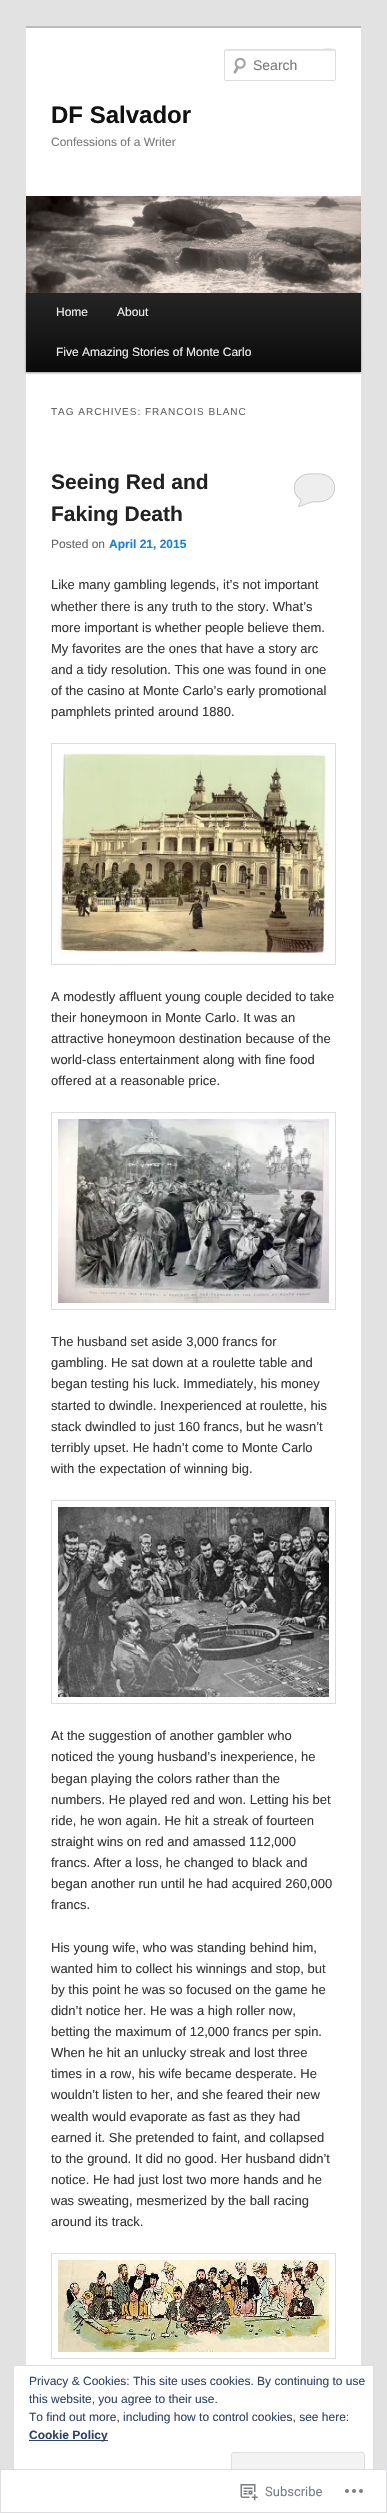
#include "include/core/SkBlurTypes.h"
#include "include/core/SkCanvas.h"
#include "include/core/SkData.h"
#include "include/core/SkFont.h"
#include "include/core/SkFontMgr.h"
#include "include/core/SkImage.h"
#include "include/core/SkMaskFilter.h"
#include "include/core/SkPaint.h"
#include "include/core/SkPathBuilder.h"
#include "include/core/SkTextBlob.h"
#include "include/effects/SkDashPathEffect.h"
#include "include/effects/SkGradientShader.h"
#include "include/utils/SkParsePath.h"

extern sk_sp<SkFontMgr> fontMgr;

static SkFont font(const char* family, int weight, float size, bool italic = false) {
    SkFontStyle style(weight, SkFontStyle::kNormal_Width,
        italic ? SkFontStyle::kItalic_Slant : SkFontStyle::kUpright_Slant);
    SkFont result(fontMgr->matchFamilyStyle(family, style), size);
    result.setSubpixel(true);
    return result;
}

static void drawLabel(SkCanvas* canvas, const char* s, float x, float y, const SkFont& font, SkColor color) {
    SkPaint ink(SkColor4f::FromColor(color));
    ink.setAntiAlias(true);
    canvas->drawString(s, x, y, font, ink);
}

static void drawTracked(SkCanvas* canvas, const char* s, float x, float y, const SkFont& font, const SkPaint& ink, float letter, float word) {
    std::vector<SkGlyphID> glyphs(font.countText(s, strlen(s), SkTextEncoding::kUTF8));
    std::vector<float> xs(glyphs.size());
    font.textToGlyphs(s, strlen(s), SkTextEncoding::kUTF8, glyphs);
    font.getXPos(glyphs, xs, x);
    float extra = 0;
    for (size_t i = 0; i < glyphs.size(); i++) {
        xs[i] += extra;
        extra += letter + word * (glyphs[i] == font.unicharToGlyph(' '));
    }
    canvas->drawTextBlob(SkTextBlob::MakeFromPosHGlyphs(glyphs, xs, y, font), 0, 0, ink);
}

static void fillRect(SkCanvas* canvas, float x, float y, float w, float h, SkColor color) {
    SkPaint ink(SkColor4f::FromColor(color));
    ink.setAntiAlias(true);
    canvas->drawRect(SkRect::MakeXYWH(x, y, w, h), ink);
}

static void drawPhoto(SkCanvas* canvas, const char* path, float x, float y, float w, float h) {
    auto image = SkImages::DeferredFromEncodedData(SkData::MakeFromFileName(path));
    canvas->drawImageRect(image, SkRect::MakeXYWH(x, y, w, h), SkSamplingOptions());
}

static SkPath parsePath(const char* data, bool evenOdd = false) {
    SkPath result = *SkParsePath::FromSVGString(data);
    if (evenOdd) result.setFillType(SkPathFillType::kEvenOdd);
    return result;
}

void draw(SkCanvas* canvas) {
    SkPaint paint;
    paint.setAntiAlias(true);
    canvas->clear(0xFFE2E2E2);
    fillRect(canvas, 26, 28, 335, 2485, 0xFFFFFFFF);
    fillRect(canvas, 26, 26, 335, 2, 0xFFBBBBBB);
    drawPhoto(canvas, "assets/img1.png", 233, 57, 13, 17);
    paint.setColor(0xFFE6E6E6);
    canvas->drawPath(parsePath("M226 51H335V52C335 45 320 50 316 50H226L225 52C225 51 225 51 226 51Z"), paint);
    paint.setStroke(true);
    paint.setStrokeWidth(1);
    paint.setColor(0xFFDDDDDD);
    canvas->drawRoundRect(SkRect::MakeXYWH(224.5f, 49.5f, 111, 31), 1.5f, 1.5f, paint);
    SkFont font1 = font("Liberation Sans", 400, 14);
    drawLabel(canvas, "Search", 253, 70, font1, 0xFF7A7A7A);
    SkFont font2 = font("Liberation Sans", 700, 24);
    drawLabel(canvas, "DF Salvador", 51, 123, font2, 0xFF111111);
    SkFont font3 = font("Liberation Sans", 400, 12);
    drawLabel(canvas, "Confessions of a Writer", 51, 146, font3, 0xFF7A7A7A);
    paint.setStroke(false);
    paint.setColor(0x66000000);
    paint.setMaskFilter(SkMaskFilter::MakeBlur(kNormal_SkBlurStyle, 1));
    canvas->drawRect(SkRect::MakeXYWH(26, 293, 335, 80), paint);
    paint.setMaskFilter(nullptr);
    drawPhoto(canvas, "assets/img2.png", 26, 196, 335, 97);
    {
        const SkColor colors[] = {0xFF252525, 0xFF0A0A0A};
        const float stops[] = {0, 1};
        const SkPoint ends[] = {{194, 292}, {194, 372}};
        paint.setShader(SkGradientShader::MakeLinear(ends, colors, stops, 2, SkTileMode::kClamp));
        paint.setAlpha(255);
    }
    canvas->drawRect(SkRect::MakeXYWH(26, 293, 335, 79), paint);
    drawLabel(canvas, "Home", 56, 316, font3, 0xFFEEEEEE);
    drawLabel(canvas, "About", 117, 316, font3, 0xFFEEEEEE);
    drawLabel(canvas, "Five Amazing Stories of Monte Carlo", 56, 356, font3, 0xFFEEEEEE);
    SkFont font4 = font("Liberation Sans", 400, 10);
    paint.setShader(nullptr);
    paint.setColor(0xFF666666);
    drawTracked(canvas, "TAG ARCHIVES: FRANCOIS BLANC", 51, 415, font4, paint, 1, 0);
    SkFont font5 = font("Liberation Sans", 700, 21);
    drawLabel(canvas, "Seeing Red and", 51, 489, font5, 0xFF222222);
    drawLabel(canvas, "Faking Death", 51, 521, font5, 0xFF222222);
    fillRect(canvas, 294, 473, 41, 34, 0xFFEEEEEE);
    drawPhoto(canvas, "assets/img3.png", 293, 471, 43, 36);
    drawLabel(canvas, "Posted on", 51, 548, font3, 0xFF666666);
    SkFont font6 = font("Liberation Sans", 700, 12);
    drawLabel(canvas, "April 21, 2015", 109, 548, font6, 0xFF1982D1);
    SkFont font7 = font("Liberation Sans", 400, 13);
    drawLabel(canvas, "Like many gambling legends, it’s not important", 51, 589, font7, 0xFF373737);
    drawLabel(canvas, "whether there is any truth to the story. What’s", 51, 611, font7, 0xFF373737);
    drawLabel(canvas, "more important is whether people believe them.", 51, 632, font7, 0xFF373737);
    drawLabel(canvas, "My favorites are the ones that have a story arc", 51, 653, font7, 0xFF373737);
    drawLabel(canvas, "and a tidy resolution. This one was found in one", 51, 674, font7, 0xFF373737);
    drawLabel(canvas, "of the casino at Monte Carlo’s early promotional", 51, 695, font7, 0xFF373737);
    drawLabel(canvas, "pamphlets printed around 1880.", 51, 716, font7, 0xFF373737);
    paint.setStroke(true);
    paint.setColor(0xFFDDDDDD);
    canvas->drawRect(SkRect::MakeXYWH(51.5f, 743.5f, 284, 221), paint);
    drawPhoto(canvas, "assets/img4.png", 58, 752, 271, 204);
    drawLabel(canvas, "A modestly affluent young couple decided to take", 51, 1001, font7, 0xFF373737);
    drawLabel(canvas, "their honeymoon in Monte Carlo. It was an", 51, 1022, font7, 0xFF373737);
    drawLabel(canvas, "attractive honeymoon destination because of the", 51, 1043, font7, 0xFF373737);
    drawLabel(canvas, "world-class entertainment along with fine food", 51, 1064, font7, 0xFF373737);
    drawLabel(canvas, "offered at a reasonable price.", 51, 1085, font7, 0xFF373737);
    canvas->drawRect(SkRect::MakeXYWH(51.5f, 1112.5f, 284, 197), paint);
    drawPhoto(canvas, "assets/img5.png", 58, 1119, 271, 184);
    drawLabel(canvas, "The husband set aside 3,000 francs for", 51, 1346, font7, 0xFF373737);
    drawLabel(canvas, "gambling. He sat down at a roulette table and", 51, 1367, font7, 0xFF373737);
    drawLabel(canvas, "began testing his luck. Immediately, his money", 51, 1388, font7, 0xFF373737);
    drawLabel(canvas, "started to dwindle. Inexperienced at roulette, his", 51, 1410, font7, 0xFF373737);
    drawLabel(canvas, "stack dwindled to just 160 francs, but he wasn’t", 51, 1431, font7, 0xFF373737);
    drawLabel(canvas, "terribly upset. He hadn’t come to Monte Carlo", 51, 1452, font7, 0xFF373737);
    drawLabel(canvas, "with the expectation of winning big.", 51, 1473, font7, 0xFF373737);
    canvas->drawRect(SkRect::MakeXYWH(51.5f, 1500.5f, 284, 203), paint);
    drawPhoto(canvas, "assets/img6.png", 58, 1507, 271, 190);
    drawLabel(canvas, "At the suggestion of another gambler who", 51, 1740, font7, 0xFF373737);
    drawLabel(canvas, "noticed the young husband’s inexperience, he", 51, 1761, font7, 0xFF373737);
    drawLabel(canvas, "began playing the colors rather than the", 51, 1783, font7, 0xFF373737);
    drawLabel(canvas, "numbers. He played red and won. Letting his bet", 51, 1804, font7, 0xFF373737);
    drawLabel(canvas, "ride, he won again. He hit a streak of fourteen", 51, 1825, font7, 0xFF373737);
    drawLabel(canvas, "straight wins on red and amassed 112,000", 51, 1846, font7, 0xFF373737);
    drawLabel(canvas, "francs. After a loss, he changed to black and", 51, 1867, font7, 0xFF373737);
    drawLabel(canvas, "began another run until he had acquired 260,000", 51, 1888, font7, 0xFF373737);
    drawLabel(canvas, "francs.", 51, 1909, font7, 0xFF373737);
    drawLabel(canvas, "His young wife, who was standing behind him,", 51, 1952, font7, 0xFF373737);
    drawLabel(canvas, "wanted him to collect his winnings and stop, but", 51, 1973, font7, 0xFF373737);
    drawLabel(canvas, "by this point he was so focused on the game he", 51, 1994, font7, 0xFF373737);
    drawLabel(canvas, "didn’t notice her. He was a high roller now,", 51, 2015, font7, 0xFF373737);
    drawLabel(canvas, "betting the maximum of 12,000 francs per spin.", 51, 2036, font7, 0xFF373737);
    drawLabel(canvas, "When he hit an unlucky streak and lost three", 51, 2057, font7, 0xFF373737);
    drawLabel(canvas, "times in a row, his wife became desperate. He", 51, 2078, font7, 0xFF373737);
    drawLabel(canvas, "wouldn’t listen to her, and she feared their new", 51, 2099, font7, 0xFF373737);
    drawLabel(canvas, "wealth would evaporate as fast as they had", 51, 2121, font7, 0xFF373737);
    drawLabel(canvas, "earned it. She pretended to faint, and collapsed", 51, 2142, font7, 0xFF373737);
    drawLabel(canvas, "to the ground. It did no good. Her husband didn’t", 51, 2163, font7, 0xFF373737);
    drawLabel(canvas, "notice. He had just lost two more hands and he", 51, 2184, font7, 0xFF373737);
    drawLabel(canvas, "was sweating, mesmerized by the ball racing", 51, 2205, font7, 0xFF373737);
    drawLabel(canvas, "around its track.", 51, 2226, font7, 0xFF373737);
    canvas->drawRect(SkRect::MakeXYWH(51.5f, 2253.5f, 284, 105), paint);
    drawPhoto(canvas, "assets/img7.png", 58, 2260, 271, 92);
    paint.setStroke(false);
    paint.setColor(0xFFFFFFFF);
    canvas->drawRect(SkRect::MakeXYWH(13.5f, 2365.5f, 360, 134), paint);
    paint.setStroke(true);
    paint.setColor(0xFFDEDEDE);
    canvas->drawRect(SkRect::MakeXYWH(13.5f, 2365.5f, 360, 134), paint);
    drawLabel(canvas, "Privacy & Cookies: This site uses cookies. By continuing to use", 29, 2385, font3, 0xFF2E4467);
    drawLabel(canvas, "this website, you agree to their use.", 29, 2403, font3, 0xFF2E4467);
    drawLabel(canvas, "To find out more, including how to control cookies, see here:", 29, 2421, font3, 0xFF2E4467);
    fillRect(canvas, 29, 2440, 79, 1, 0xFF2E4467);
    drawLabel(canvas, "Cookie Policy", 29, 2439, font6, 0xFF2E4467);
    paint.setStroke(false);
    paint.setColor(0xFFF3F3F3);
    canvas->drawRoundRect(SkRect::MakeXYWH(231.5f, 2452.5f, 133, 38), 2.5f, 2.5f, paint);
    paint.setStroke(true);
    paint.setColor(0xFFDEDEDE);
    canvas->drawRoundRect(SkRect::MakeXYWH(231.5f, 2452.5f, 133, 38), 2.5f, 2.5f, paint);
    fillRect(canvas, 0, 2469, 387, 44, 0xFAFFFFFF);
    paint.setColor(0xFADCDCDE);
    canvas->drawRect(SkRect::MakeXYWH(0.5f, 2469.5f, 386, 43), paint);
    drawPhoto(canvas, "assets/img8.png", 240, 2484, 18, 17);
    SkFont font8 = font("Roboto", 400, 13);
    drawLabel(canvas, "Subscribe", 265, 2496, font8, 0xFF7B7F84);
    drawPhoto(canvas, "assets/img9.png", 345, 2489, 18, 4);
}
